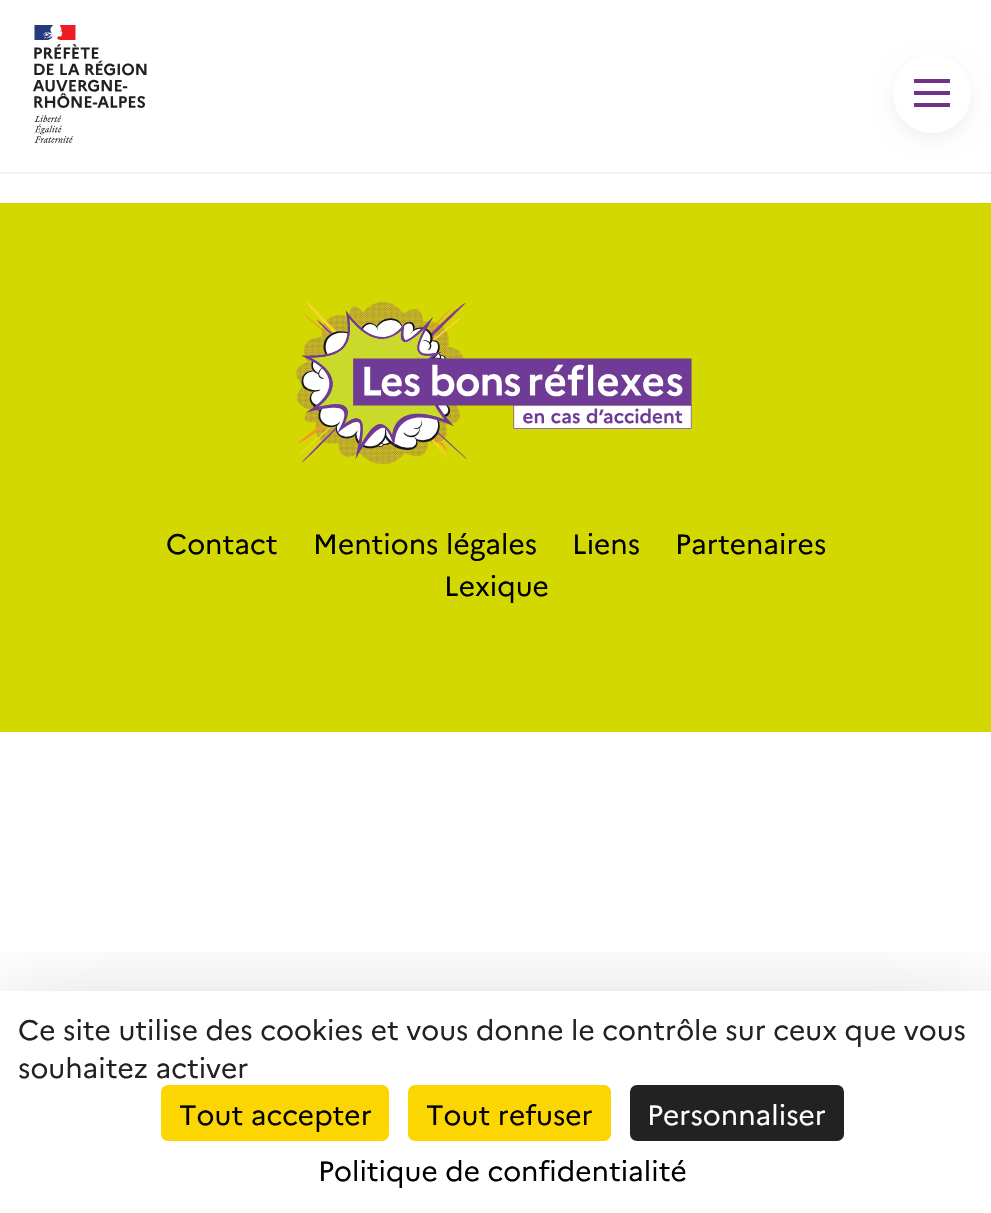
#include "include/core/SkBlurTypes.h"
#include "include/core/SkCanvas.h"
#include "include/core/SkData.h"
#include "include/core/SkFont.h"
#include "include/core/SkFontMgr.h"
#include "include/core/SkImage.h"
#include "include/core/SkMaskFilter.h"
#include "include/core/SkPaint.h"
#include "include/core/SkPathBuilder.h"
#include "include/core/SkTextBlob.h"
#include "include/effects/SkDashPathEffect.h"
#include "include/effects/SkGradientShader.h"
#include "include/utils/SkParsePath.h"

extern sk_sp<SkFontMgr> fontMgr;

static SkFont font(const char* family, int weight, float size, bool italic = false) {
    SkFontStyle style(weight, SkFontStyle::kNormal_Width,
        italic ? SkFontStyle::kItalic_Slant : SkFontStyle::kUpright_Slant);
    SkFont result(fontMgr->matchFamilyStyle(family, style), size);
    result.setSubpixel(true);
    return result;
}

static void drawLabel(SkCanvas* canvas, const char* s, float x, float y, const SkFont& font, SkColor color) {
    SkPaint ink(SkColor4f::FromColor(color));
    ink.setAntiAlias(true);
    canvas->drawString(s, x, y, font, ink);
}

static void fillRect(SkCanvas* canvas, float x, float y, float w, float h, SkColor color) {
    SkPaint ink(SkColor4f::FromColor(color));
    ink.setAntiAlias(true);
    canvas->drawRect(SkRect::MakeXYWH(x, y, w, h), ink);
}

static void fillRRect(SkCanvas* canvas, float x, float y, float w, float h, float radius, SkColor color) {
    SkPaint ink(SkColor4f::FromColor(color));
    ink.setAntiAlias(true);
    canvas->drawRoundRect(SkRect::MakeXYWH(x, y, w, h), radius, radius, ink);
}

static void drawPhoto(SkCanvas* canvas, const char* path, float x, float y, float w, float h) {
    auto image = SkImages::DeferredFromEncodedData(SkData::MakeFromFileName(path));
    canvas->drawImageRect(image, SkRect::MakeXYWH(x, y, w, h), SkSamplingOptions());
}

void draw(SkCanvas* canvas) {
    SkPaint paint;
    paint.setAntiAlias(true);
    canvas->clear(0xFFFFFFFF);
    fillRect(canvas, 0, 172, 991, 2, 0xFFF5F1F0);
    drawPhoto(canvas, "assets/img1.png", 33, 25, 114, 118);
    paint.setColor(0x0F000000);
    paint.setMaskFilter(SkMaskFilter::MakeBlur(kNormal_SkBlurStyle, 9));
    canvas->drawRoundRect(SkRect::MakeXYWH(893, 61, 78, 79), 39, 39, paint);
    paint.setMaskFilter(nullptr);
    fillRRect(canvas, 893, 54, 78, 79, 39, 0xFFFFFFFF);
    fillRect(canvas, 914, 79, 36, 4, 0xFF71328A);
    fillRect(canvas, 914, 91, 36, 4, 0xFF71328A);
    fillRect(canvas, 914, 103, 36, 4, 0xFF71328A);
    fillRect(canvas, 0, 203, 991, 529, 0xFFD3D800);
    drawPhoto(canvas, "assets/img2.png", 296, 301, 396, 164);
    SkFont font1 = font("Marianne", 400, 28);
    drawLabel(canvas, "Contact", 166, 554, font1, 0xFF000000);
    drawLabel(canvas, "Mentions légales", 313, 554, font1, 0xFF000000);
    drawLabel(canvas, "Liens", 572, 554, font1, 0xFF000000);
    drawLabel(canvas, "Partenaires", 675, 554, font1, 0xFF000000);
    drawLabel(canvas, "Lexique", 444, 596, font1, 0xFF000000);
    canvas->save();
    canvas->clipRect(SkRect::MakeXYWH(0, 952, 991, 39));
    paint.setColor(0x40000000);
    paint.setMaskFilter(SkMaskFilter::MakeBlur(kNormal_SkBlurStyle, 52.5f));
    canvas->drawRect(SkRect::MakeXYWH(0, 1026, 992, 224), paint);
    paint.setMaskFilter(nullptr);
    canvas->restore();
    drawLabel(canvas, "Ce site utilise des cookies et vous donne le contrôle sur ceux que vous", 18, 1040, font1, 0xFF222222);
    drawLabel(canvas, "souhaitez activer", 18, 1078, font1, 0xFF222222);
    fillRRect(canvas, 161, 1085, 228, 56, 7, 0xFFFBD600);
    drawLabel(canvas, "Tout accepter", 179, 1125, font1, 0xFF000000);
    fillRRect(canvas, 408, 1085, 203, 56, 7, 0xFFFBD600);
    drawLabel(canvas, "Tout refuser", 426, 1125, font1, 0xFF000000);
    fillRRect(canvas, 630, 1085, 214, 56, 7, 0xFF222222);
    drawLabel(canvas, "Personnaliser", 647, 1125, font1, 0xFFFFFFFF);
    drawLabel(canvas, "Politique de confidentialité", 318, 1181, font1, 0xFF000000);
}
